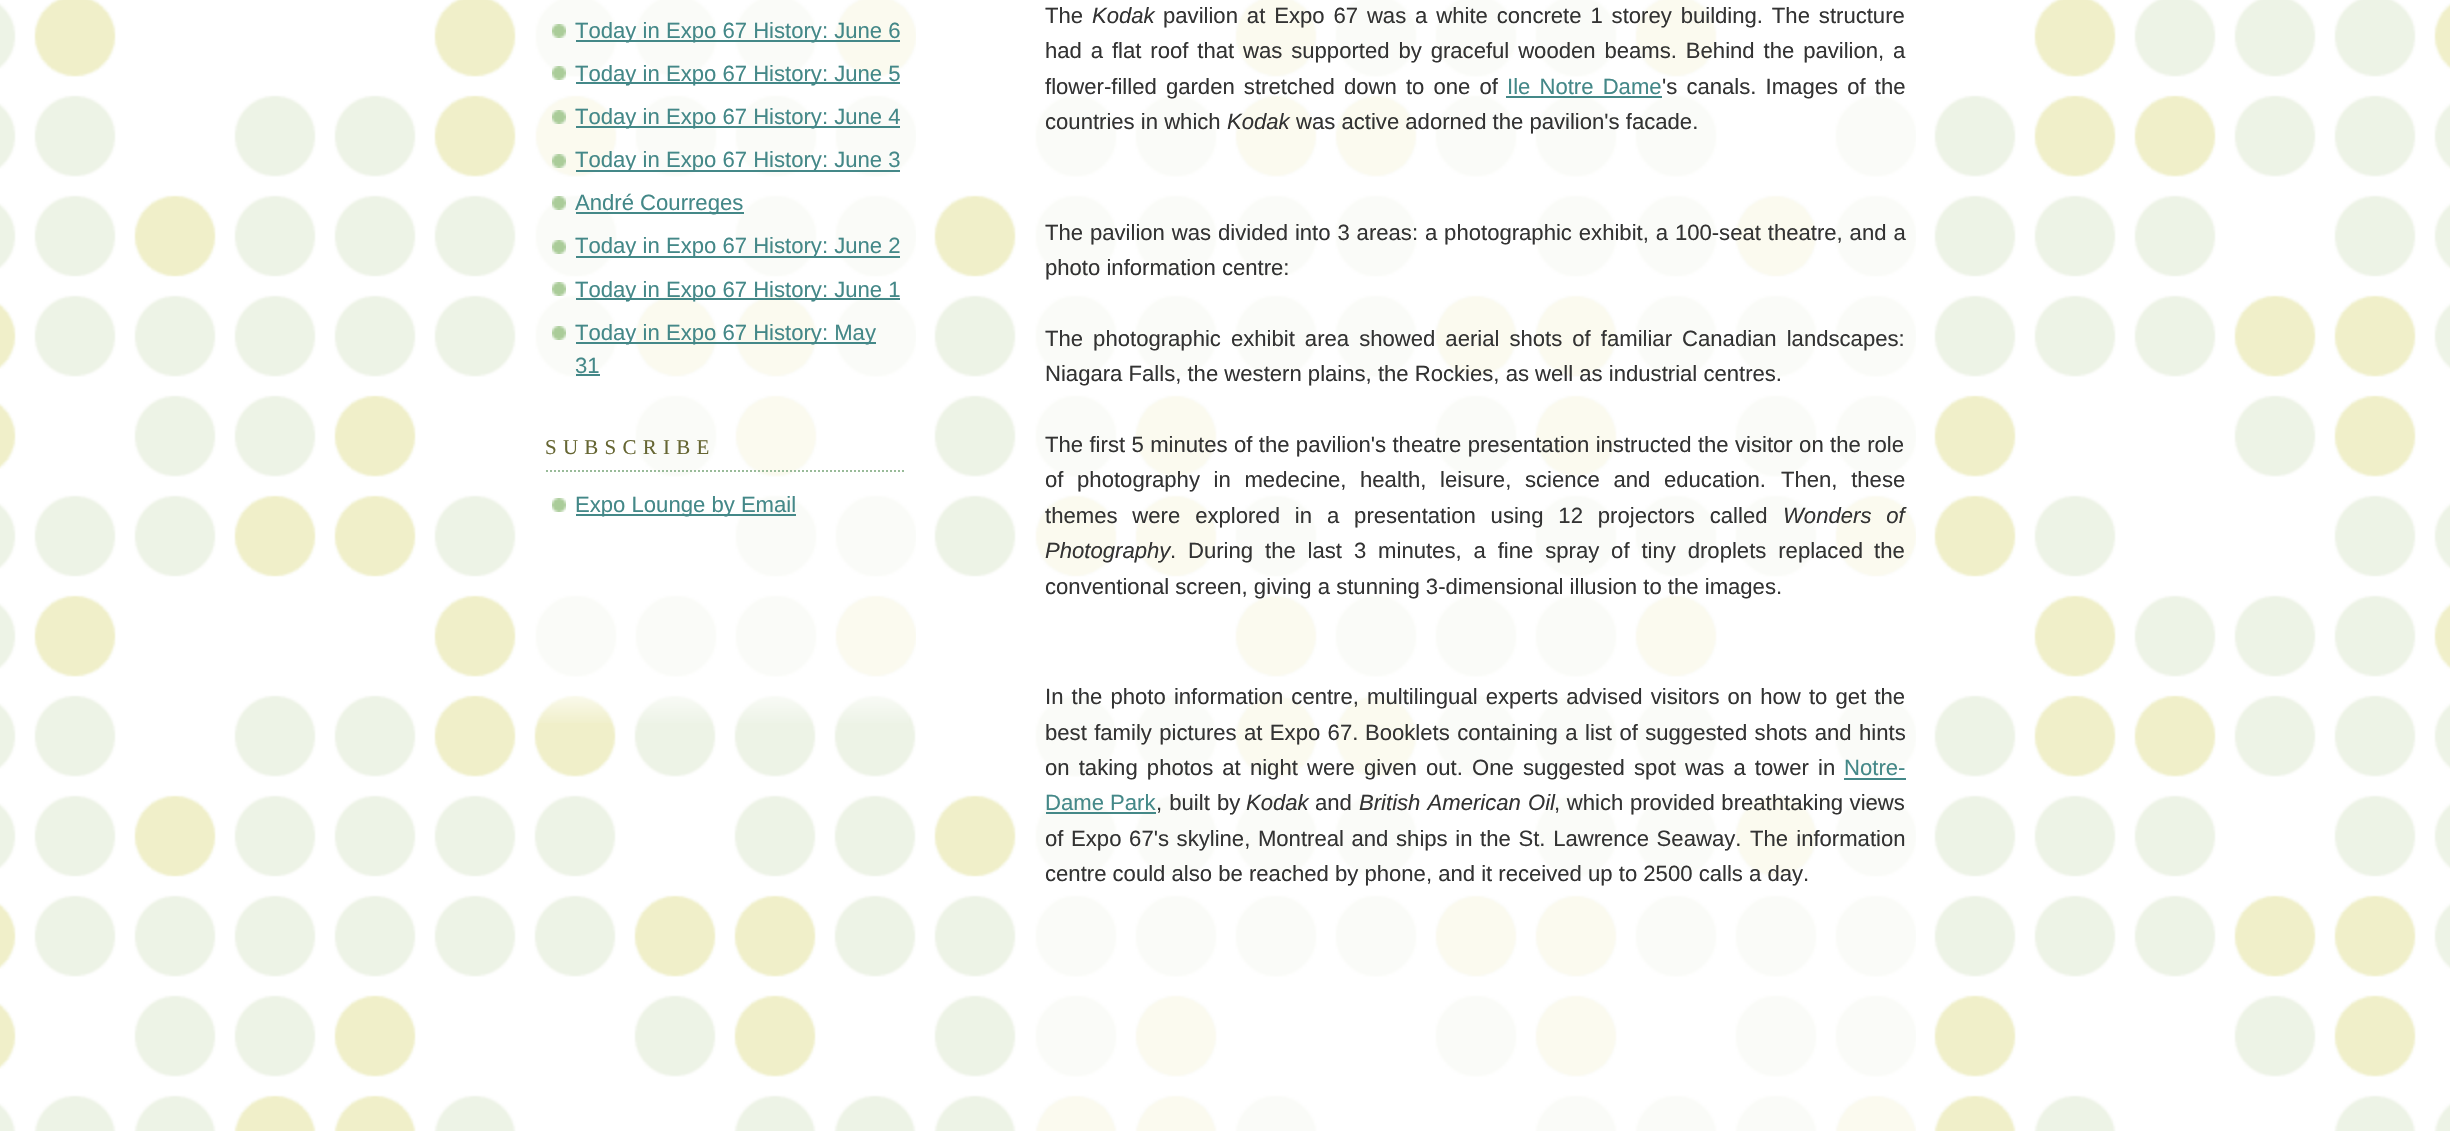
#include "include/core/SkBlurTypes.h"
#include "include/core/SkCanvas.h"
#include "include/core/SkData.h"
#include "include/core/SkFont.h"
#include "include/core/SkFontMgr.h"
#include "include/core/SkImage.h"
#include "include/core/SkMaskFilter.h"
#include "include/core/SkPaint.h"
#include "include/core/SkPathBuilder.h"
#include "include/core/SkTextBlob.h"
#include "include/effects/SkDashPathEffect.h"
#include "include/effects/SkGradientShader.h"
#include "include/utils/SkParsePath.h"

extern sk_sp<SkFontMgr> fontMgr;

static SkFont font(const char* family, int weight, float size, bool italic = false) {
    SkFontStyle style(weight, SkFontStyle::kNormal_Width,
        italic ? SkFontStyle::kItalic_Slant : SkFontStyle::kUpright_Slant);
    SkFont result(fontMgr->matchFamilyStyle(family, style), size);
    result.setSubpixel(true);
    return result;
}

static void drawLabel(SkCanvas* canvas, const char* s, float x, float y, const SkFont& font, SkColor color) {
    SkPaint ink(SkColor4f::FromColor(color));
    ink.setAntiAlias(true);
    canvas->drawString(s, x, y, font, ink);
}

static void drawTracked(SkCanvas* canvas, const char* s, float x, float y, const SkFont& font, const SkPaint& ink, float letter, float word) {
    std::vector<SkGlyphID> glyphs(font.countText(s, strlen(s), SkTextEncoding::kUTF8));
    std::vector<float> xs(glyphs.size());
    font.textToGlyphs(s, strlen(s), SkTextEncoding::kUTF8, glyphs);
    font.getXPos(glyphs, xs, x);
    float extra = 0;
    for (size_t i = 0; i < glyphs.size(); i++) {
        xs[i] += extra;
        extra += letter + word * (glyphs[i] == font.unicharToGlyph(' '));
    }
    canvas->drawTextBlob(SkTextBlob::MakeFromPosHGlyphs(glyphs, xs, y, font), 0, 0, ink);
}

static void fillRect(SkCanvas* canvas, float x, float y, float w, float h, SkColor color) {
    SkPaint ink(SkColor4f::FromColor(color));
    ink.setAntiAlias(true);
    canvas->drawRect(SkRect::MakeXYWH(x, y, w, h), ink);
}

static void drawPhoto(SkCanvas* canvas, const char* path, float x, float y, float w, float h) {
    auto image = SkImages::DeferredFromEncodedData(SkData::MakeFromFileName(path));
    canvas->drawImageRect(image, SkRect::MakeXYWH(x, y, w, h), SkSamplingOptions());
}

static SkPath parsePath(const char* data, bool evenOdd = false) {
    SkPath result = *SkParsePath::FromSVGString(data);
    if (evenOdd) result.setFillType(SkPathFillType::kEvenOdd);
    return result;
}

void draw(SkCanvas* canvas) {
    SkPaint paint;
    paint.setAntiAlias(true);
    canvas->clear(0xFFFFFFFF);
    drawPhoto(canvas, "assets/img1.png", 0, 0, 2450, 1131);
    drawPhoto(canvas, "assets/img2.png", 539, 695, 370, 28);
    drawPhoto(canvas, "assets/img3.png", 534, 0, 381, 677);
    drawPhoto(canvas, "assets/img4.png", 552, 24, 14, 14);
    fillRect(canvas, 576, 40, 324, 2, 0xFF448888);
    SkFont font1 = font("Liberation Sans", 400, 22.1f);
    drawLabel(canvas, "Today in Expo 67 History: June 6", 575, 38, font1, 0xFF448888);
    drawPhoto(canvas, "assets/img5.png", 552, 66, 14, 14);
    fillRect(canvas, 576, 82, 324, 2, 0xFF448888);
    drawLabel(canvas, "Today in Expo 67 History: June 5", 575, 81, font1, 0xFF448888);
    drawPhoto(canvas, "assets/img6.png", 552, 110, 14, 14);
    fillRect(canvas, 576, 126, 324, 2, 0xFF448888);
    drawLabel(canvas, "Today in Expo 67 History: June 4", 575, 124, font1, 0xFF448888);
    drawPhoto(canvas, "assets/img7.png", 552, 154, 14, 14);
    fillRect(canvas, 576, 170, 324, 2, 0xFF448888);
    drawLabel(canvas, "Today in Expo 67 History: June 3", 575, 167, font1, 0xFF448888);
    drawPhoto(canvas, "assets/img8.png", 552, 196, 14, 14);
    fillRect(canvas, 576, 212, 168, 2, 0xFF448888);
    drawLabel(canvas, "André Courreges", 575, 210, font1, 0xFF448888);
    drawPhoto(canvas, "assets/img4.png", 552, 240, 14, 14);
    fillRect(canvas, 576, 256, 324, 2, 0xFF448888);
    drawLabel(canvas, "Today in Expo 67 History: June 2", 575, 253, font1, 0xFF448888);
    drawPhoto(canvas, "assets/img9.png", 552, 282, 14, 14);
    fillRect(canvas, 576, 298, 324, 2, 0xFF448888);
    drawLabel(canvas, "Today in Expo 67 History: June 1", 575, 297, font1, 0xFF448888);
    drawPhoto(canvas, "assets/img4.png", 552, 326, 14, 14);
    fillRect(canvas, 576, 342, 300, 2, 0xFF448888);
    drawLabel(canvas, "Today in Expo 67 History: May", 575, 340, font1, 0xFF448888);
    drawLabel(canvas, "31", 575, 373, font1, 0xFF448888);
    fillRect(canvas, 576, 374, 24, 2, 0xFF448888);
    paint.setStroke(true);
    paint.setStrokeWidth(2);
    paint.setColor(0xFF99BB99);
    paint.setPathEffect(SkDashPathEffect::Make({{2, 2}}, 0));
    canvas->drawPath(parsePath("M546 471H906"), paint);
    paint.setPathEffect(nullptr);
    SkFont font2 = font("Liberation Serif", 400, 21);
    paint.setStroke(false);
    paint.setColor(0xFF666633);
    drawTracked(canvas, "SUBSCRIBE", 545, 454, font2, paint, 6.25f, 0);
    drawPhoto(canvas, "assets/img10.png", 552, 498, 14, 14);
    fillRect(canvas, 576, 514, 220, 2, 0xFF448888);
    drawLabel(canvas, "Expo Lounge by Email", 575, 512, font1, 0xFF448888);
    drawPhoto(canvas, "assets/img11.png", 1034, 0, 881, 1131);
    drawLabel(canvas, "The", 1045, 23, font1, 0xFF333333);
    SkFont font3 = font("Liberation Sans", 400, 22.1f, true);
    drawLabel(canvas, "Kodak", 1092, 23, font3, 0xFF333333);
    paint.setColor(0xFF333333);
    drawTracked(canvas, "pavilion at Expo 67 was a white concrete 1 storey building. The structure", 1163, 23, font1, paint, 0, 2.75f);
    drawTracked(canvas, "had a flat roof that was supported by graceful wooden beams. Behind the pavilion, a", 1045, 58, font1, paint, 0, 2.75f);
    drawTracked(canvas, "flower-filled garden stretched down to one of", 1045, 94, font1, paint, 0, 3);
    paint.setColor(0xFF448888);
    drawTracked(canvas, "Ile Notre Dame", 1507, 94, font1, paint, 0, 3);
    fillRect(canvas, 1506, 96, 156, 2, 0xFF448888);
    paint.setColor(0xFF333333);
    drawTracked(canvas, "'s canals. Images of the", 1662, 94, font1, paint, 0, 3);
    drawLabel(canvas, "countries in which", 1045, 129, font1, 0xFF333333);
    drawLabel(canvas, "Kodak", 1227, 129, font3, 0xFF333333);
    drawLabel(canvas, "was active adorned the pavilion's facade.", 1296, 129, font1, 0xFF333333);
    drawTracked(canvas, "The pavilion was divided into 3 areas: a photographic exhibit, a 100-seat theatre, and a", 1045, 240, font1, paint, 0, 0.75f);
    drawLabel(canvas, "photo information centre:", 1045, 275, font1, 0xFF333333);
    drawTracked(canvas, "The photographic exhibit area showed aerial shots of familiar Canadian landscapes:", 1045, 346, font1, paint, 0, 3.9f);
    drawLabel(canvas, "Niagara Falls, the western plains, the Rockies, as well as industrial centres.", 1045, 381, font1, 0xFF333333);
    drawTracked(canvas, "The first 5 minutes of the pavilion's theatre presentation instructed the visitor on the role", 1045, 452, font1, paint, 0, 0.25f);
    drawTracked(canvas, "of photography in medecine, health, leisure, science and education.", 1045, 487, font1, paint, 0, 7.5f);
    drawTracked(canvas, "Then, these", 1781, 487, font1, paint, 0, 7.5f);
    drawTracked(canvas, "themes were explored in a presentation using 12 projectors called", 1045, 523, font1, paint, 0, 8.75f);
    drawTracked(canvas, "Wonders of", 1783, 523, font3, paint, 0, 8.75f);
    drawLabel(canvas, "Photography", 1045, 558, font3, 0xFF333333);
    drawLabel(canvas, ".", 1170, 558, font1, 0xFF333333);
    drawTracked(canvas, "During the last 3 minutes, a fine spray of tiny droplets replaced", 1188, 558, font1, paint, 0, 5.75f);
    drawLabel(canvas, "the", 1874, 558, font1, 0xFF333333);
    drawLabel(canvas, "conventional screen, giving a stunning 3-dimensional illusion to the images.", 1045, 594, font1, 0xFF333333);
    drawTracked(canvas, "In the photo information centre, multilingual experts advised visitors on how to get the", 1045, 704, font1, paint, 0, 2);
    drawTracked(canvas, "best family pictures at Expo 67.", 1045, 740, font1, paint, 0, 1.25f);
    drawTracked(canvas, "Booklets containing a list of suggested shots and hints", 1365, 740, font1, paint, 0, 1.25f);
    drawTracked(canvas, "on taking photos at night were given out.", 1045, 775, font1, paint, 0, 3);
    drawTracked(canvas, "One suggested spot was a tower in", 1472, 775, font1, paint, 0, 3);
    drawLabel(canvas, "Notre-", 1844, 775, font1, 0xFF448888);
    fillRect(canvas, 1844, 778, 62, 2, 0xFF448888);
    drawLabel(canvas, "Dame Park", 1045, 810, font1, 0xFF448888);
    fillRect(canvas, 1046, 812, 110, 2, 0xFF448888);
    drawTracked(canvas, ", built by", 1156, 810, font1, paint, 0, 1);
    drawLabel(canvas, "Kodak", 1246, 810, font3, 0xFF333333);
    drawLabel(canvas, "and", 1315, 810, font1, 0xFF333333);
    drawTracked(canvas, "British American Oil", 1359, 810, font3, paint, 0, 1);
    drawTracked(canvas, ", which provided breathtaking views", 1554, 810, font1, paint, 0, 0.5f);
    drawTracked(canvas, "of Expo 67's skyline, Montreal and ships in the St. Lawrence Seaway.", 1045, 846, font1, paint, 0, 1.5f);
    drawTracked(canvas, "The information", 1750, 846, font1, paint, 0, 2);
    drawLabel(canvas, "centre could also be reached by phone, and it received up to 2500 calls a day.", 1045, 881, font1, 0xFF333333);
}
